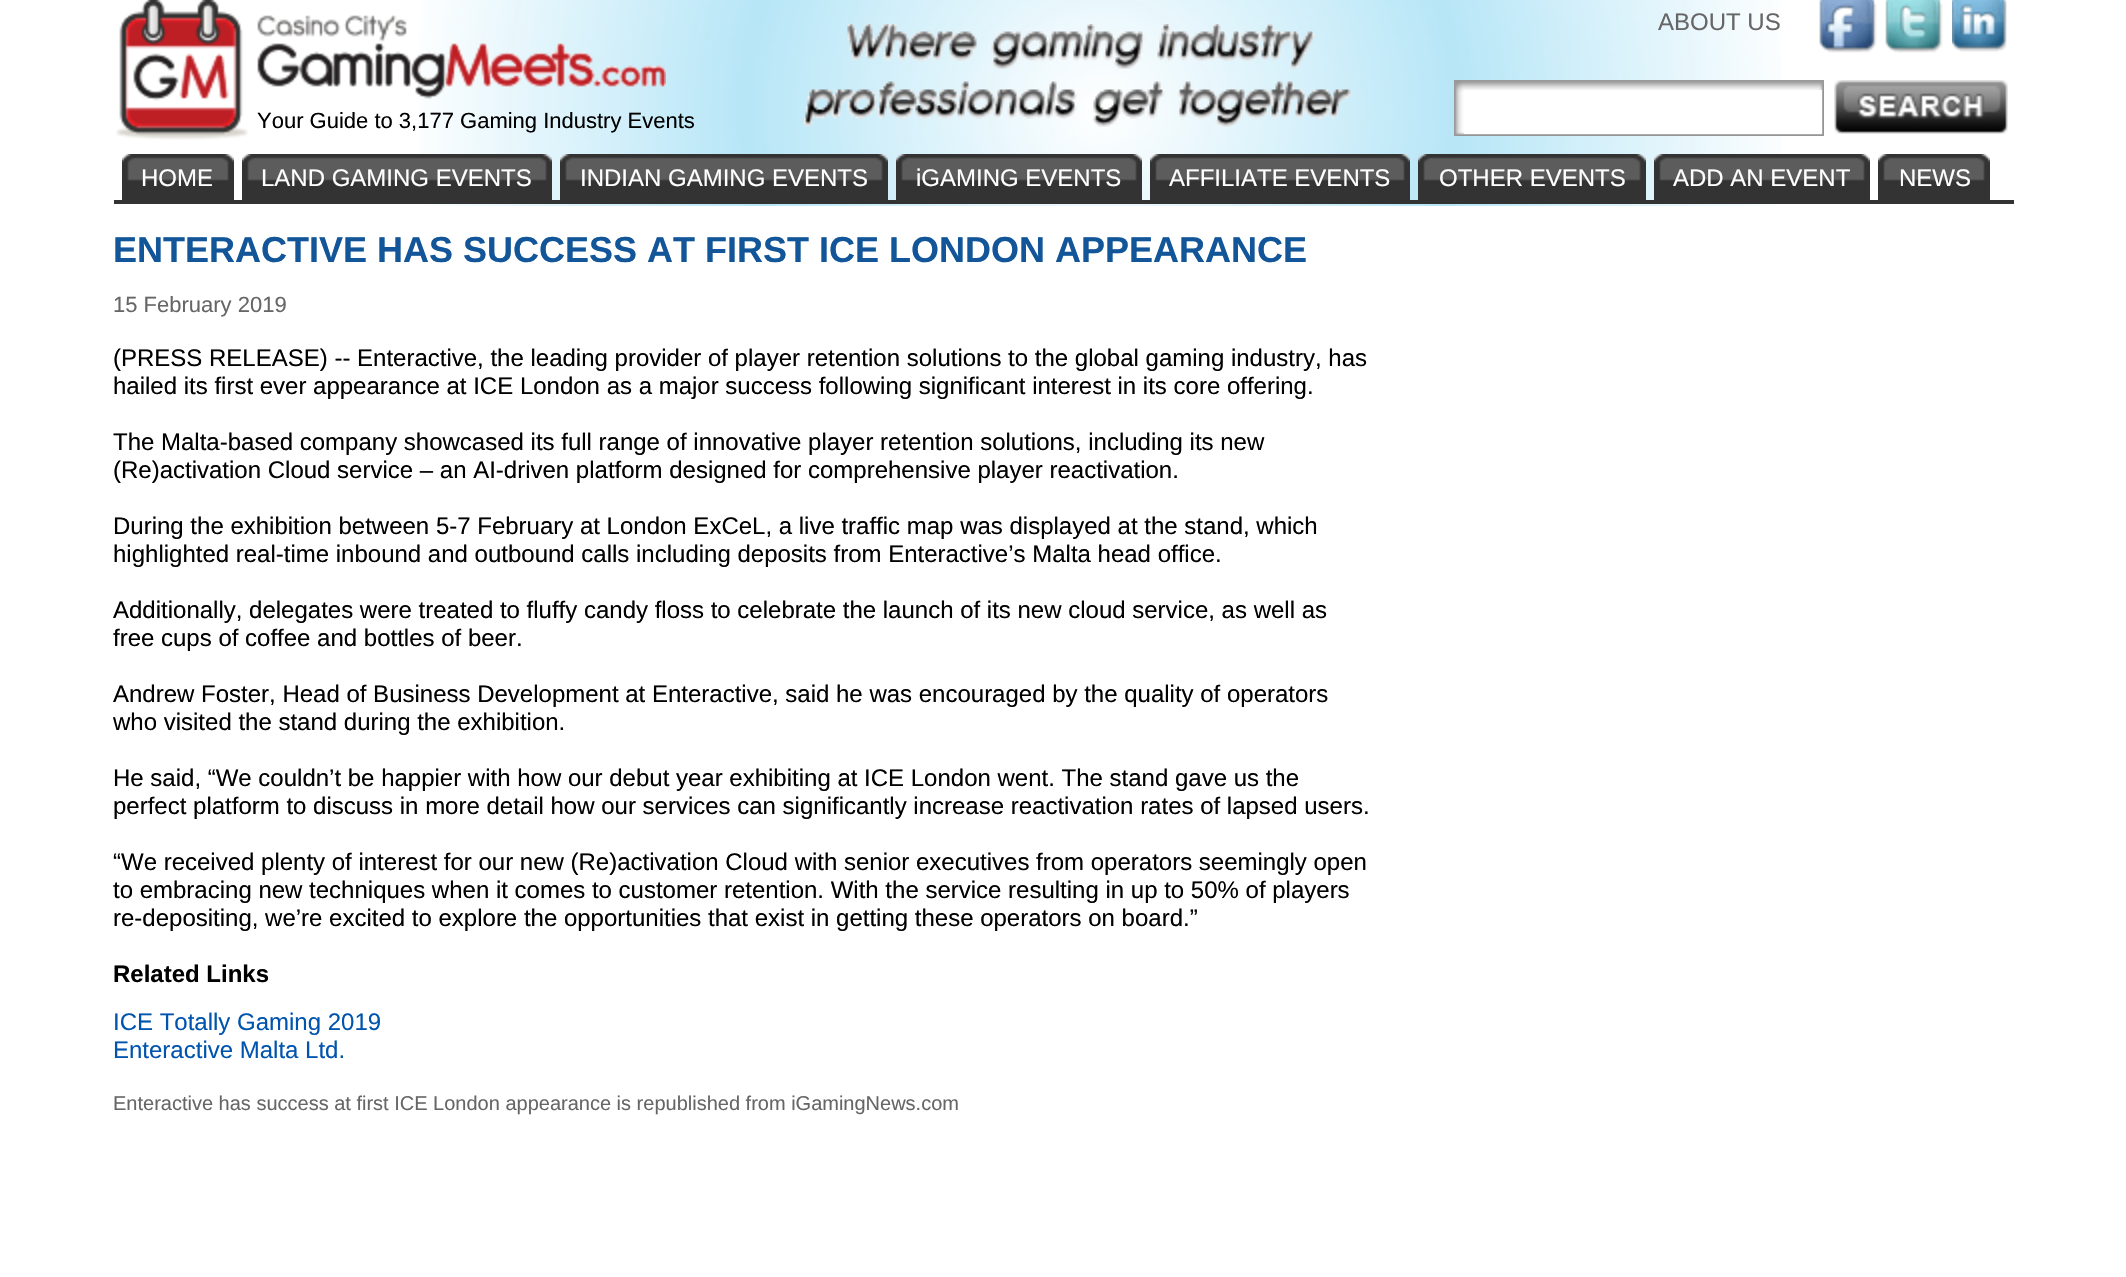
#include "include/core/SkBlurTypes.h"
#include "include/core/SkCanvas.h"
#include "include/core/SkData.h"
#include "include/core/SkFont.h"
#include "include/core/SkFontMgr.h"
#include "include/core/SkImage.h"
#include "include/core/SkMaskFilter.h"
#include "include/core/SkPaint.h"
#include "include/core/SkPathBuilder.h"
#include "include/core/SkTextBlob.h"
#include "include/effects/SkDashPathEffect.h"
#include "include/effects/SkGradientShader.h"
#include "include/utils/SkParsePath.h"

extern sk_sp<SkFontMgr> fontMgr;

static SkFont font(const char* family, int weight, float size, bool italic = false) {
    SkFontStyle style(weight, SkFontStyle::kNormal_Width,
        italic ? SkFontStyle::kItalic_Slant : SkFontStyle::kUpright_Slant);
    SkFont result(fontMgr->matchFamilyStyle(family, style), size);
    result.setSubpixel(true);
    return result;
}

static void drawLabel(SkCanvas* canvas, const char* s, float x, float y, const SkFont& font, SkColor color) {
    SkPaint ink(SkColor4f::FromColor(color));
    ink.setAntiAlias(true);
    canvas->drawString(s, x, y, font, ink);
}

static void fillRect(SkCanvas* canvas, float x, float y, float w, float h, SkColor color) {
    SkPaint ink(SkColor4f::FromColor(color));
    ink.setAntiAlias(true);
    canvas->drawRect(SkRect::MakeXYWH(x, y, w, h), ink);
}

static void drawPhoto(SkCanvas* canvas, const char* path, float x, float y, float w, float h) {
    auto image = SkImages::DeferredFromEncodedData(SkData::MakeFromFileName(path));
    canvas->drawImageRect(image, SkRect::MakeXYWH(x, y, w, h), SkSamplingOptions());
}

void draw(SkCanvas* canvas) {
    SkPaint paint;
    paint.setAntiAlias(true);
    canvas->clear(0xFFFFFFFF);
    drawPhoto(canvas, "assets/img1.png", 420, 0, 1362, 206);
    drawPhoto(canvas, "assets/img2.png", 116, 0, 550, 140);
    SkFont font1 = font("Liberation Sans", 400, 24);
    drawLabel(canvas, "ABOUT US", 1658, 30, font1, 0xFF666666);
    drawPhoto(canvas, "assets/img3.png", 1819, 0, 58, 53);
    drawPhoto(canvas, "assets/img4.png", 1885, 0, 58, 53);
    drawPhoto(canvas, "assets/img5.png", 1952, 0, 55, 52);
    SkFont font2 = font("Liberation Sans", 400, 22);
    drawLabel(canvas, "Your Guide to 3,177 Gaming Industry Events", 257, 128, font2, 0xFF000000);
    drawPhoto(canvas, "assets/img6.png", 804, 24, 547, 103);
    drawPhoto(canvas, "assets/img7.png", 804, 24, 547, 103);
    drawPhoto(canvas, "assets/img8.png", 1454, 80, 370, 56);
    drawPhoto(canvas, "assets/img9.png", 1834, 80, 174, 54);
    fillRect(canvas, 1464, 90, 358, 44, 0xFFFFFFFF);
    drawPhoto(canvas, "assets/img10.png", 122, 154, 12, 46);
    drawPhoto(canvas, "assets/img11.png", 134, 154, 88, 46);
    drawLabel(canvas, "HOME", 141, 186, font1, 0xFFFFFFFF);
    drawPhoto(canvas, "assets/img12.png", 222, 154, 12, 46);
    drawPhoto(canvas, "assets/img10.png", 242, 154, 12, 46);
    drawPhoto(canvas, "assets/img13.png", 254, 154, 286, 46);
    drawLabel(canvas, "LAND GAMING EVENTS", 261, 186, font1, 0xFFFFFFFF);
    drawPhoto(canvas, "assets/img14.png", 540, 154, 12, 46);
    drawPhoto(canvas, "assets/img15.png", 560, 154, 12, 46);
    drawPhoto(canvas, "assets/img16.png", 572, 154, 304, 46);
    drawLabel(canvas, "INDIAN GAMING EVENTS", 580, 186, font1, 0xFFFFFFFF);
    drawPhoto(canvas, "assets/img17.png", 876, 154, 12, 46);
    drawPhoto(canvas, "assets/img18.png", 896, 154, 12, 46);
    drawPhoto(canvas, "assets/img19.png", 908, 154, 222, 46);
    drawLabel(canvas, "iGAMING EVENTS", 916, 186, font1, 0xFFFFFFFF);
    drawPhoto(canvas, "assets/img20.png", 1130, 154, 12, 46);
    drawPhoto(canvas, "assets/img21.png", 1150, 154, 12, 46);
    drawPhoto(canvas, "assets/img22.png", 1162, 154, 236, 46);
    drawLabel(canvas, "AFFILIATE EVENTS", 1169, 186, font1, 0xFFFFFFFF);
    drawPhoto(canvas, "assets/img23.png", 1398, 154, 12, 46);
    drawPhoto(canvas, "assets/img24.png", 1418, 154, 12, 46);
    drawPhoto(canvas, "assets/img25.png", 1430, 154, 204, 46);
    drawLabel(canvas, "OTHER EVENTS", 1439, 186, font1, 0xFFFFFFFF);
    drawPhoto(canvas, "assets/img26.png", 1634, 154, 12, 46);
    drawPhoto(canvas, "assets/img27.png", 1654, 154, 12, 46);
    drawPhoto(canvas, "assets/img28.png", 1666, 154, 192, 46);
    drawLabel(canvas, "ADD AN EVENT", 1673, 186, font1, 0xFFFFFFFF);
    drawPhoto(canvas, "assets/img12.png", 1858, 154, 12, 46);
    drawPhoto(canvas, "assets/img10.png", 1878, 154, 12, 46);
    drawPhoto(canvas, "assets/img11.png", 1890, 154, 88, 46);
    drawLabel(canvas, "NEWS", 1899, 186, font1, 0xFFFFFFFF);
    drawPhoto(canvas, "assets/img12.png", 1978, 154, 12, 46);
    fillRect(canvas, 114, 200, 1900, 4, 0xFF333333);
    SkFont font3 = font("Liberation Sans", 700, 36);
    drawLabel(canvas, "ENTERACTIVE HAS SUCCESS AT FIRST ICE LONDON APPEARANCE", 113, 262, font3, 0xFF125699);
    drawLabel(canvas, "15 February 2019", 113, 312, font2, 0xFF666666);
    drawLabel(canvas, "(PRESS RELEASE) -- Enteractive, the leading provider of player retention solutions to the global gaming industry, has", 113, 366, font1, 0xFF000000);
    drawLabel(canvas, "hailed its first ever appearance at ICE London as a major success following significant interest in its core offering.", 113, 394, font1, 0xFF000000);
    drawLabel(canvas, "The Malta-based company showcased its full range of innovative player retention solutions, including its new", 113, 450, font1, 0xFF000000);
    drawLabel(canvas, "(Re)activation Cloud service – an AI-driven platform designed for comprehensive player reactivation.", 113, 478, font1, 0xFF000000);
    drawLabel(canvas, "During the exhibition between 5-7 February at London ExCeL, a live traffic map was displayed at the stand, which", 113, 534, font1, 0xFF000000);
    drawLabel(canvas, "highlighted real-time inbound and outbound calls including deposits from Enteractive’s Malta head office.", 113, 562, font1, 0xFF000000);
    drawLabel(canvas, "Additionally, delegates were treated to fluffy candy floss to celebrate the launch of its new cloud service, as well as", 113, 618, font1, 0xFF000000);
    drawLabel(canvas, "free cups of coffee and bottles of beer.", 113, 646, font1, 0xFF000000);
    drawLabel(canvas, "Andrew Foster, Head of Business Development at Enteractive, said he was encouraged by the quality of operators", 113, 702, font1, 0xFF000000);
    drawLabel(canvas, "who visited the stand during the exhibition.", 113, 730, font1, 0xFF000000);
    drawLabel(canvas, "He said, “We couldn’t be happier with how our debut year exhibiting at ICE London went. The stand gave us the", 113, 786, font1, 0xFF000000);
    drawLabel(canvas, "perfect platform to discuss in more detail how our services can significantly increase reactivation rates of lapsed users.", 113, 814, font1, 0xFF000000);
    drawLabel(canvas, "“We received plenty of interest for our new (Re)activation Cloud with senior executives from operators seemingly open", 113, 870, font1, 0xFF000000);
    drawLabel(canvas, "to embracing new techniques when it comes to customer retention. With the service resulting in up to 50% of players", 113, 898, font1, 0xFF000000);
    drawLabel(canvas, "re-depositing, we’re excited to explore the opportunities that exist in getting these operators on board.”", 113, 926, font1, 0xFF000000);
    SkFont font4 = font("Liberation Sans", 700, 24);
    drawLabel(canvas, "Related Links", 113, 982, font4, 0xFF000000);
    drawLabel(canvas, "ICE Totally Gaming 2019", 113, 1030, font1, 0xFF0054AE);
    drawLabel(canvas, "Enteractive Malta Ltd.", 113, 1058, font1, 0xFF0054AE);
    SkFont font5 = font("Liberation Sans", 400, 20);
    drawLabel(canvas, "Enteractive has success at first ICE London appearance is republished from iGamingNews.com", 113, 1110, font5, 0xFF666666);
}
